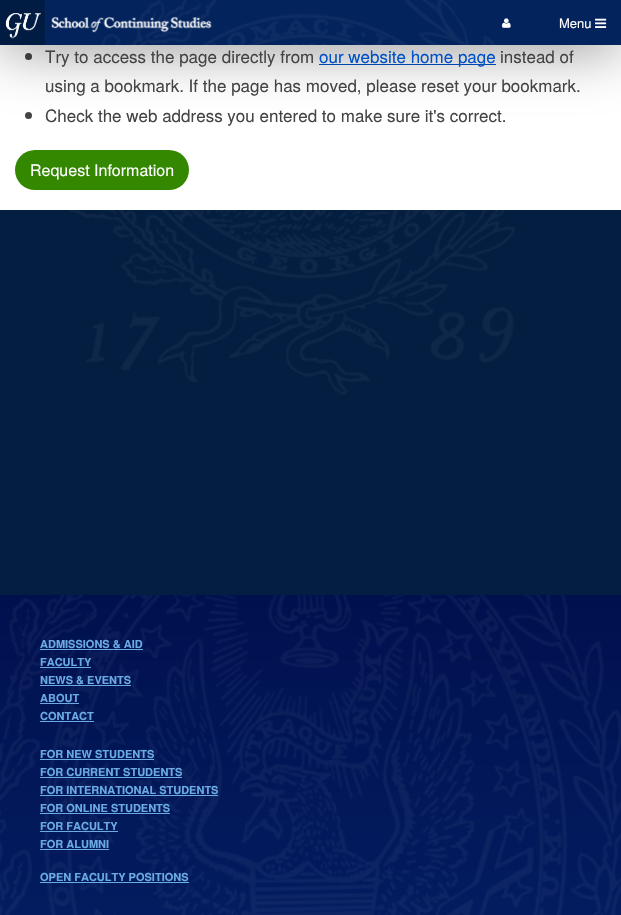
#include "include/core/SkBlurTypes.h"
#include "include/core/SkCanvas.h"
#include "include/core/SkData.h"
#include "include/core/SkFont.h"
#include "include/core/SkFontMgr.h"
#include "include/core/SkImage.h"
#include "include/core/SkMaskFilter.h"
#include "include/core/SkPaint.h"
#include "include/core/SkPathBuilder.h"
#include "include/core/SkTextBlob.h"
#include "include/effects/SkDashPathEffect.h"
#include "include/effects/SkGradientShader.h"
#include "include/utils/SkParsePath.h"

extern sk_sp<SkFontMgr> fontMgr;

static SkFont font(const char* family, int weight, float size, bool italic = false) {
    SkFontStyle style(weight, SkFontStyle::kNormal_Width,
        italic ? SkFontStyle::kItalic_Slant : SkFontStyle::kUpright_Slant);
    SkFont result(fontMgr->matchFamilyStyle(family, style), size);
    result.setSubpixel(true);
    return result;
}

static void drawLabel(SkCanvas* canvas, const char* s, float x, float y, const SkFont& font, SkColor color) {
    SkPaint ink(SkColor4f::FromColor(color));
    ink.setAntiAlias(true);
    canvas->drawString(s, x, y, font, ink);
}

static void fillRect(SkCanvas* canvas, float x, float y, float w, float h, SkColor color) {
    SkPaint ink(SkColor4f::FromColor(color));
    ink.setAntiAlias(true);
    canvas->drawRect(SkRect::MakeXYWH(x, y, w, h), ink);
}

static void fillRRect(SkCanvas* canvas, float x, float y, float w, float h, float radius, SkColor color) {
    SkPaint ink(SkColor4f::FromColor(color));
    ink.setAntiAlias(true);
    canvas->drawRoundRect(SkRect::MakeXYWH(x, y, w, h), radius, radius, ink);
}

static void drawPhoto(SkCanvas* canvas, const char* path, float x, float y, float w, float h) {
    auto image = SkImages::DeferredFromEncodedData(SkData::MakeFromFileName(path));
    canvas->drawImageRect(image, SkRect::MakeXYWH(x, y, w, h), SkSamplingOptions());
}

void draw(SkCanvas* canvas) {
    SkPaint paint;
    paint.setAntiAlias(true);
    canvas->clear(0xFF041E41);
    fillRect(canvas, 0, 45, 621, 165, 0xFFFFFFFF);
    paint.setColor(0xFF444444);
    canvas->drawCircle(28.5f, 56.5f, 3.5f, paint);
    fillRect(canvas, 319, 64, 177, 1, 0xFF0050C8);
    canvas->drawCircle(28.5f, 115.5f, 3.5f, paint);
    paint.setColor(0x80000000);
    paint.setMaskFilter(SkMaskFilter::MakeBlur(kNormal_SkBlurStyle, 30));
    canvas->drawRect(SkRect::MakeXYWH(0, 0, 621, 45), paint);
    paint.setMaskFilter(nullptr);
    fillRect(canvas, 0, 0, 621, 45, 0xFF03235C);
    drawPhoto(canvas, "assets/img1.png", 101, 0, 394, 45);
    drawPhoto(canvas, "assets/img2.png", 0, 0, 212, 45);
    drawPhoto(canvas, "assets/img3.png", 502, 18, 9, 10);
    SkFont font1 = font("TeX Gyre Heros", 400, 13);
    drawLabel(canvas, "Menu", 559, 28, font1, 0xFFFFFFFF);
    drawPhoto(canvas, "assets/img4.png", 595, 18, 12, 10);
    SkFont font2 = font("TeX Gyre Heros", 400, 17);
    drawLabel(canvas, "Try to access the page directly from", 45, 63, font2, 0xFF444444);
    drawLabel(canvas, "our website home page", 319, 63, font2, 0xFF0050C8);
    drawLabel(canvas, "instead of", 500, 63, font2, 0xFF444444);
    drawLabel(canvas, "using a bookmark. If the page has moved, please reset your bookmark.", 45, 92, font2, 0xFF444444);
    drawLabel(canvas, "Check the web address you entered to make sure it's correct.", 45, 122, font2, 0xFF444444);
    fillRRect(canvas, 15, 150, 174, 40, 20, 0xFF338800);
    SkFont font3 = font("TeX Gyre Heros", 400, 16);
    drawLabel(canvas, "Request Information", 30, 176, font3, 0xFFFFFFFF);
    drawPhoto(canvas, "assets/img5.png", 69, 210, 446, 185);
    {
        const SkColor colors[] = {0xFF00104E, 0xFF05276E};
        const float stops[] = {0, 1};
        const SkPoint ends[] = {{310, 595}, {311, 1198}};
        paint.setShader(SkGradientShader::MakeLinear(ends, colors, stops, 2, SkTileMode::kClamp));
        paint.setAlpha(255);
    }
    canvas->drawRect(SkRect::MakeXYWH(0, 595, 621, 320), paint);
    drawPhoto(canvas, "assets/img6.png", 0, 595, 621, 320);
    SkFont font4 = font("TeX Gyre Heros", 700, 11);
    drawLabel(canvas, "ADMISSIONS & AID", 40, 648, font4, 0xFF6BABE5);
    fillRect(canvas, 40, 649, 103, 1, 0xFF6BABE5);
    drawLabel(canvas, "FACULTY", 40, 666, font4, 0xFF6BABE5);
    fillRect(canvas, 40, 667, 51, 1, 0xFF6BABE5);
    drawLabel(canvas, "NEWS & EVENTS", 40, 684, font4, 0xFF6BABE5);
    fillRect(canvas, 40, 685, 91, 1, 0xFF6BABE5);
    drawLabel(canvas, "ABOUT", 40, 702, font4, 0xFF6BABE5);
    fillRect(canvas, 40, 703, 39, 1, 0xFF6BABE5);
    drawLabel(canvas, "CONTACT", 40, 720, font4, 0xFF6BABE5);
    fillRect(canvas, 40, 721, 54, 1, 0xFF6BABE5);
    drawLabel(canvas, "FOR NEW STUDENTS", 40, 758, font4, 0xFF6BABE5);
    fillRect(canvas, 40, 759, 114, 1, 0xFF6BABE5);
    drawLabel(canvas, "FOR CURRENT STUDENTS", 40, 776, font4, 0xFF6BABE5);
    fillRect(canvas, 40, 777, 142, 1, 0xFF6BABE5);
    drawLabel(canvas, "FOR INTERNATIONAL STUDENTS", 40, 794, font4, 0xFF6BABE5);
    fillRect(canvas, 40, 795, 178, 1, 0xFF6BABE5);
    drawLabel(canvas, "FOR ONLINE STUDENTS", 40, 812, font4, 0xFF6BABE5);
    fillRect(canvas, 40, 813, 130, 1, 0xFF6BABE5);
    drawLabel(canvas, "FOR FACULTY", 40, 830, font4, 0xFF6BABE5);
    fillRect(canvas, 40, 831, 78, 1, 0xFF6BABE5);
    drawLabel(canvas, "FOR ALUMNI", 40, 848, font4, 0xFF6BABE5);
    fillRect(canvas, 40, 849, 69, 1, 0xFF6BABE5);
    drawLabel(canvas, "OPEN FACULTY POSITIONS", 40, 881, font4, 0xFF6BABE5);
    fillRect(canvas, 40, 882, 149, 1, 0xFF6BABE5);
}
